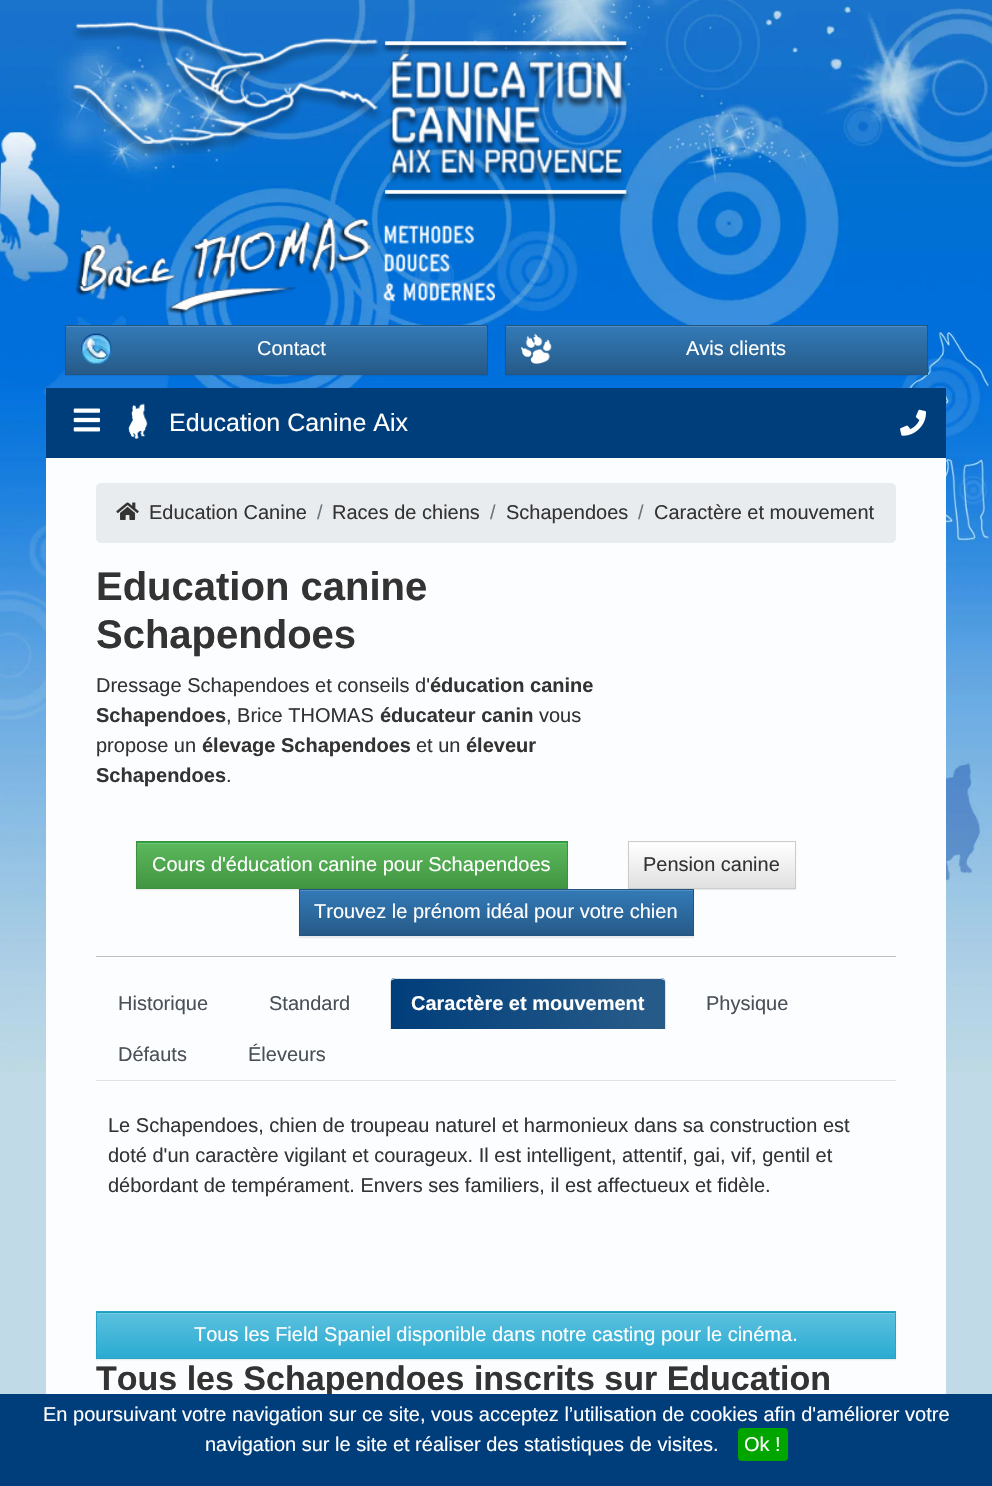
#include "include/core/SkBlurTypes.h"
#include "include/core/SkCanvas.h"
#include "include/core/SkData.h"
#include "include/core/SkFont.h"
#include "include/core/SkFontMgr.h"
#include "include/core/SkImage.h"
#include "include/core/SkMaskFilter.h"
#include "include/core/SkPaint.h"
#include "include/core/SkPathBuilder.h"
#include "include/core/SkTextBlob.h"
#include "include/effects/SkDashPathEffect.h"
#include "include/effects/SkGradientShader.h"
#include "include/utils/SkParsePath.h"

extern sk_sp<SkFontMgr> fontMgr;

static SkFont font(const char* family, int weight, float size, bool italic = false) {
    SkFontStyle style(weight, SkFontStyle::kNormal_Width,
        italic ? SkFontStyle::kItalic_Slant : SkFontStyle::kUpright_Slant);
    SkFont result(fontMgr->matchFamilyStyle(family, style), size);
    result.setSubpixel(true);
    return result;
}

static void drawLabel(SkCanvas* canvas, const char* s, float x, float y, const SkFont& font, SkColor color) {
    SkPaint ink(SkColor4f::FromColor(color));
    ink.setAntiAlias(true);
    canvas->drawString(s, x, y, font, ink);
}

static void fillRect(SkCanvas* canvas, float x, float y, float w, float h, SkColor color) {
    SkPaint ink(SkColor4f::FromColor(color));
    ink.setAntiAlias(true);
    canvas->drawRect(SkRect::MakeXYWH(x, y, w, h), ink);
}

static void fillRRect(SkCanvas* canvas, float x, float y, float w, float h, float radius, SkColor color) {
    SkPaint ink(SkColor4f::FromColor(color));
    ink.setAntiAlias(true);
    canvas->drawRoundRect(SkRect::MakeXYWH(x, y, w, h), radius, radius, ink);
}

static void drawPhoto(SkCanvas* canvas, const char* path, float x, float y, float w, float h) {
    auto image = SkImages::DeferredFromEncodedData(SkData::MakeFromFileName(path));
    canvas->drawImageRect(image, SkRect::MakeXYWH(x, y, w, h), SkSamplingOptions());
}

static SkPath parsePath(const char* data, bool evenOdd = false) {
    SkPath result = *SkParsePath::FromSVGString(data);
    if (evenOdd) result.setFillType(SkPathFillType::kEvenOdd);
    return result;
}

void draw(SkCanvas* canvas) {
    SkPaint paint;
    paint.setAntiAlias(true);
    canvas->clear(0xFFC0DAE7);
    drawPhoto(canvas, "assets/img1.png", 0, 0, 992, 1072);
    drawPhoto(canvas, "assets/img2.png", 69, 22, 561, 180);
    drawPhoto(canvas, "assets/img3.png", 75, 217, 296, 98);
    drawPhoto(canvas, "assets/img4.png", 383, 225, 112, 77);
    paint.setColor(0x12000000);
    paint.setMaskFilter(SkMaskFilter::MakeBlur(kNormal_SkBlurStyle, 0.5f));
    canvas->drawRect(SkRect::MakeXYWH(65, 326, 423, 50), paint);
    paint.setMaskFilter(nullptr);
    {
        const SkColor colors[] = {0xFF337AB7, 0xFF265A88};
        const float stops[] = {0, 1};
        const SkPoint ends[] = {{276, 326}, {276, 374}};
        paint.setShader(SkGradientShader::MakeLinear(ends, colors, stops, 2, SkTileMode::kClamp));
        paint.setAlpha(255);
    }
    canvas->drawRect(SkRect::MakeXYWH(66, 326, 421, 48), paint);
    fillRect(canvas, 66, 326, 420, 1, 0xFF528EC2);
    paint.setStroke(true);
    paint.setStrokeWidth(1);
    paint.setShader(nullptr);
    paint.setColor(0xFF245580);
    canvas->drawRect(SkRect::MakeXYWH(65.5f, 325.5f, 422, 49), paint);
    drawPhoto(canvas, "assets/img5.png", 81, 333, 31, 31);
    SkFont font1 = font("Liberation Sans", 400, 20);
    drawLabel(canvas, "Contact", 257, 355, font1, 0xFFFFFFFF);
    paint.setStroke(false);
    paint.setColor(0x12000000);
    paint.setMaskFilter(SkMaskFilter::MakeBlur(kNormal_SkBlurStyle, 0.5f));
    canvas->drawRect(SkRect::MakeXYWH(505, 326, 423, 50), paint);
    paint.setMaskFilter(nullptr);
    {
        const SkColor colors[] = {0xFF337AB7, 0xFF265A88};
        const float stops[] = {0, 1};
        const SkPoint ends[] = {{716, 326}, {716, 374}};
        paint.setShader(SkGradientShader::MakeLinear(ends, colors, stops, 2, SkTileMode::kClamp));
        paint.setAlpha(255);
    }
    canvas->drawRect(SkRect::MakeXYWH(506, 326, 421, 48), paint);
    fillRect(canvas, 506, 326, 420, 1, 0xFF528EC2);
    paint.setStroke(true);
    paint.setShader(nullptr);
    paint.setColor(0xFF245580);
    canvas->drawRect(SkRect::MakeXYWH(505.5f, 325.5f, 422, 49), paint);
    drawPhoto(canvas, "assets/img6.png", 521, 333, 31, 31);
    drawLabel(canvas, "Avis clients", 686, 355, font1, 0xFFFFFFFF);
    fillRect(canvas, 46, 388, 900, 70, 0xFF003E7B);
    drawPhoto(canvas, "assets/img7.png", 73, 408, 27, 24);
    drawPhoto(canvas, "assets/img8.png", 128, 403, 20, 36);
    SkFont font2 = font("Liberation Sans", 400, 25);
    drawLabel(canvas, "Education Canine Aix", 169, 431, font2, 0xFFFFFFFF);
    drawPhoto(canvas, "assets/img9.png", 900, 409, 27, 27);
    fillRect(canvas, 46, 458, 900, 936, 0xFFFCFDFF);
    fillRRect(canvas, 96, 483, 800, 60, 5, 0xFFE9ECEF);
    drawPhoto(canvas, "assets/img10.png", 116, 502, 23, 18);
    drawLabel(canvas, "Education Canine", 149, 519, font1, 0xFF333333);
    drawLabel(canvas, "/", 317, 519, font1, 0xFF6C757D);
    drawLabel(canvas, "Races de chiens", 332, 519, font1, 0xFF333333);
    drawLabel(canvas, "/", 490, 519, font1, 0xFF6C757D);
    drawLabel(canvas, "Schapendoes", 506, 519, font1, 0xFF333333);
    drawLabel(canvas, "/", 638, 519, font1, 0xFF6C757D);
    drawLabel(canvas, "Caractère et mouvement", 654, 519, font1, 0xFF333333);
    SkFont font3 = font("Liberation Sans", 700, 40);
    drawLabel(canvas, "Education canine", 96, 600, font3, 0xFF333333);
    drawLabel(canvas, "Schapendoes", 96, 648, font3, 0xFF333333);
    drawLabel(canvas, "Dressage Schapendoes et conseils d'", 96, 692, font1, 0xFF333333);
    SkFont font4 = font("Liberation Sans", 700, 20);
    drawLabel(canvas, "éducation canine", 430, 692, font4, 0xFF333333);
    drawLabel(canvas, "Schapendoes", 96, 722, font4, 0xFF333333);
    drawLabel(canvas, ", Brice THOMAS", 226, 722, font1, 0xFF333333);
    drawLabel(canvas, "éducateur canin", 380, 722, font4, 0xFF333333);
    drawLabel(canvas, "vous", 539, 722, font1, 0xFF333333);
    drawLabel(canvas, "propose un", 96, 752, font1, 0xFF333333);
    drawLabel(canvas, "élevage Schapendoes", 202, 752, font4, 0xFF333333);
    drawLabel(canvas, "et un", 416, 752, font1, 0xFF333333);
    drawLabel(canvas, "éleveur", 466, 752, font4, 0xFF333333);
    drawLabel(canvas, "Schapendoes", 96, 782, font4, 0xFF333333);
    drawLabel(canvas, ".", 226, 782, font1, 0xFF333333);
    paint.setStroke(false);
    paint.setColor(0x12000000);
    paint.setMaskFilter(SkMaskFilter::MakeBlur(kNormal_SkBlurStyle, 0.5f));
    canvas->drawRect(SkRect::MakeXYWH(136, 843, 432, 47), paint);
    paint.setMaskFilter(nullptr);
    fillRect(canvas, 137, 842, 430, 1, 0xFF28A745);
    {
        const SkColor colors[] = {0xFF5CB85C, 0xFF419641};
        const float stops[] = {0, 1};
        const SkPoint ends[] = {{352, 843}, {352, 888}};
        paint.setShader(SkGradientShader::MakeLinear(ends, colors, stops, 2, SkTileMode::kClamp));
        paint.setAlpha(255);
    }
    canvas->drawRect(SkRect::MakeXYWH(137, 843, 430, 45), paint);
    fillRect(canvas, 138, 843, 428, 1, 0xFF74C374);
    paint.setStroke(true);
    paint.setShader(nullptr);
    paint.setColor(0xFF3E8F3E);
    canvas->drawRect(SkRect::MakeXYWH(136.5f, 841.5f, 431, 47), paint);
    drawLabel(canvas, "Cours d'éducation canine pour Schapendoes", 152, 871, font1, 0xFFFFFFFF);
    paint.setStroke(false);
    paint.setColor(0x12000000);
    paint.setMaskFilter(SkMaskFilter::MakeBlur(kNormal_SkBlurStyle, 0.5f));
    canvas->drawRect(SkRect::MakeXYWH(628, 843, 168, 47), paint);
    paint.setMaskFilter(nullptr);
    {
        const SkColor colors[] = {0xFFFFFFFF, 0xFFE0E0E0};
        const float stops[] = {0, 1};
        const SkPoint ends[] = {{712, 843}, {712, 888}};
        paint.setShader(SkGradientShader::MakeLinear(ends, colors, stops, 2, SkTileMode::kClamp));
        paint.setAlpha(255);
    }
    canvas->drawRect(SkRect::MakeXYWH(629, 843, 166, 45), paint);
    paint.setStroke(true);
    paint.setShader(nullptr);
    paint.setColor(0xFFCCCCCC);
    canvas->drawRect(SkRect::MakeXYWH(628.5f, 841.5f, 167, 47), paint);
    drawLabel(canvas, "Pension canine", 643, 871, font1, 0xFF333333);
    paint.setStroke(false);
    paint.setColor(0x12000000);
    paint.setMaskFilter(SkMaskFilter::MakeBlur(kNormal_SkBlurStyle, 0.5f));
    canvas->drawRect(SkRect::MakeXYWH(299, 890, 395, 48), paint);
    paint.setMaskFilter(nullptr);
    {
        const SkColor colors[] = {0xFF337AB7, 0xFF265A88};
        const float stops[] = {0, 1};
        const SkPoint ends[] = {{496, 890}, {496, 935}};
        paint.setShader(SkGradientShader::MakeLinear(ends, colors, stops, 2, SkTileMode::kClamp));
        paint.setAlpha(255);
    }
    canvas->drawRect(SkRect::MakeXYWH(300, 891, 393, 44), paint);
    fillRect(canvas, 300, 890, 393, 1, 0xFF528EC1);
    paint.setStroke(true);
    paint.setShader(nullptr);
    paint.setColor(0xFF245580);
    canvas->drawRect(SkRect::MakeXYWH(299.5f, 889.5f, 394, 46), paint);
    drawLabel(canvas, "Trouvez le prénom idéal pour votre chien", 314, 918, font1, 0xFFFFFFFF);
    fillRect(canvas, 96, 956, 800, 1, 0xFFC0C0C0);
    fillRect(canvas, 96, 1080, 800, 1, 0xFFDEE2E6);
    drawLabel(canvas, "Historique", 118, 1010, font1, 0xFF495057);
    drawLabel(canvas, "Standard", 269, 1010, font1, 0xFF495057);
    canvas->save();
    canvas->clipPath(parsePath("M395 978H661C664 978 666 980 666 983V1030H390V983C390 980 392 978 395 978Z"), true);
    paint.setStroke(false);
    {
        const SkColor colors[] = {0xFF003E7B, 0xFF265A88, 0xFF265A88};
        const float stops[] = {0, 0.91f, 1};
        const SkPoint ends[] = {{391, 1004}, {665, 1004}};
        paint.setShader(SkGradientShader::MakeLinear(ends, colors, stops, 3, SkTileMode::kClamp));
        paint.setAlpha(255);
    }
    canvas->drawRect(SkRect::MakeXYWH(391, 978, 274, 51), paint);
    canvas->restore();
    paint.setShader(nullptr);
    paint.setColor(0xFFDEE2E6);
    canvas->drawPath(parsePath("M395 978L392 979V980L395 979H661L664 980L665 979L661 978Z"), paint);
    canvas->drawPath(parsePath("M666 1030V981L665 979L664 980L665 981V1029Z"), paint);
    paint.setColor(0xFFFFFFFF);
    canvas->drawPath(parsePath("M666 1030L665 1029H391L390 1030Z"), paint);
    paint.setColor(0xFFDEE2E6);
    canvas->drawPath(parsePath("M390 1030L391 1029V981L392 980V979C391 980 390 981 390 982Z"), paint);
    drawLabel(canvas, "Caractère et mouvement", 411, 1010, font4, 0xFFFFFFFF);
    drawLabel(canvas, "Physique", 706, 1010, font1, 0xFF495057);
    drawLabel(canvas, "Défauts", 118, 1061, font1, 0xFF495057);
    drawLabel(canvas, "Éleveurs", 248, 1061, font1, 0xFF495057);
    drawLabel(canvas, "Le Schapendoes, chien de troupeau naturel et harmonieux dans sa construction est", 108, 1132, font1, 0xFF333333);
    drawLabel(canvas, "doté d'un caractère vigilant et courageux. Il est intelligent, attentif, gai, vif, gentil et", 108, 1162, font1, 0xFF333333);
    drawLabel(canvas, "débordant de tempérament. Envers ses familiers, il est affectueux et fidèle.", 108, 1192, font1, 0xFF333333);
    paint.setColor(0x12000000);
    paint.setMaskFilter(SkMaskFilter::MakeBlur(kNormal_SkBlurStyle, 0.5f));
    canvas->drawRect(SkRect::MakeXYWH(96, 1313, 800, 47), paint);
    paint.setMaskFilter(nullptr);
    fillRect(canvas, 97, 1312, 798, 1, 0xFF17A2B8);
    {
        const SkColor colors[] = {0xFF5BC0DE, 0xFF2AABD2};
        const float stops[] = {0, 1};
        const SkPoint ends[] = {{496, 1313}, {496, 1358}};
        paint.setShader(SkGradientShader::MakeLinear(ends, colors, stops, 2, SkTileMode::kClamp));
        paint.setAlpha(255);
    }
    canvas->drawRect(SkRect::MakeXYWH(97, 1313, 798, 45), paint);
    fillRect(canvas, 98, 1313, 797, 1, 0xFF73C9E3);
    paint.setStroke(true);
    paint.setShader(nullptr);
    paint.setColor(0xFF28A4C9);
    canvas->drawRect(SkRect::MakeXYWH(96.5f, 1311.5f, 799, 47), paint);
    drawLabel(canvas, "Tous les Field Spaniel disponible dans notre casting pour le cinéma.", 194, 1341, font1, 0xFFFFFFFF);
    SkFont font5 = font("Liberation Sans", 700, 34);
    drawLabel(canvas, "Tous les Schapendoes inscrits sur Education", 96, 1390, font5, 0xFF333333);
    fillRect(canvas, 0, 1394, 992, 92, 0xFF003E7B);
    drawLabel(canvas, "En poursuivant votre navigation sur ce site, vous acceptez l’utilisation de cookies afin d'améliorer votre", 43, 1421, font1, 0xFFFFFFFF);
    drawLabel(canvas, "navigation sur le site et réaliser des statistiques de visites.", 205, 1451, font1, 0xFFFFFFFF);
    fillRRect(canvas, 738, 1428, 50, 33, 4, 0xFF00A500);
    drawLabel(canvas, "Ok !", 744, 1451, font1, 0xFFFFFFFF);
}
